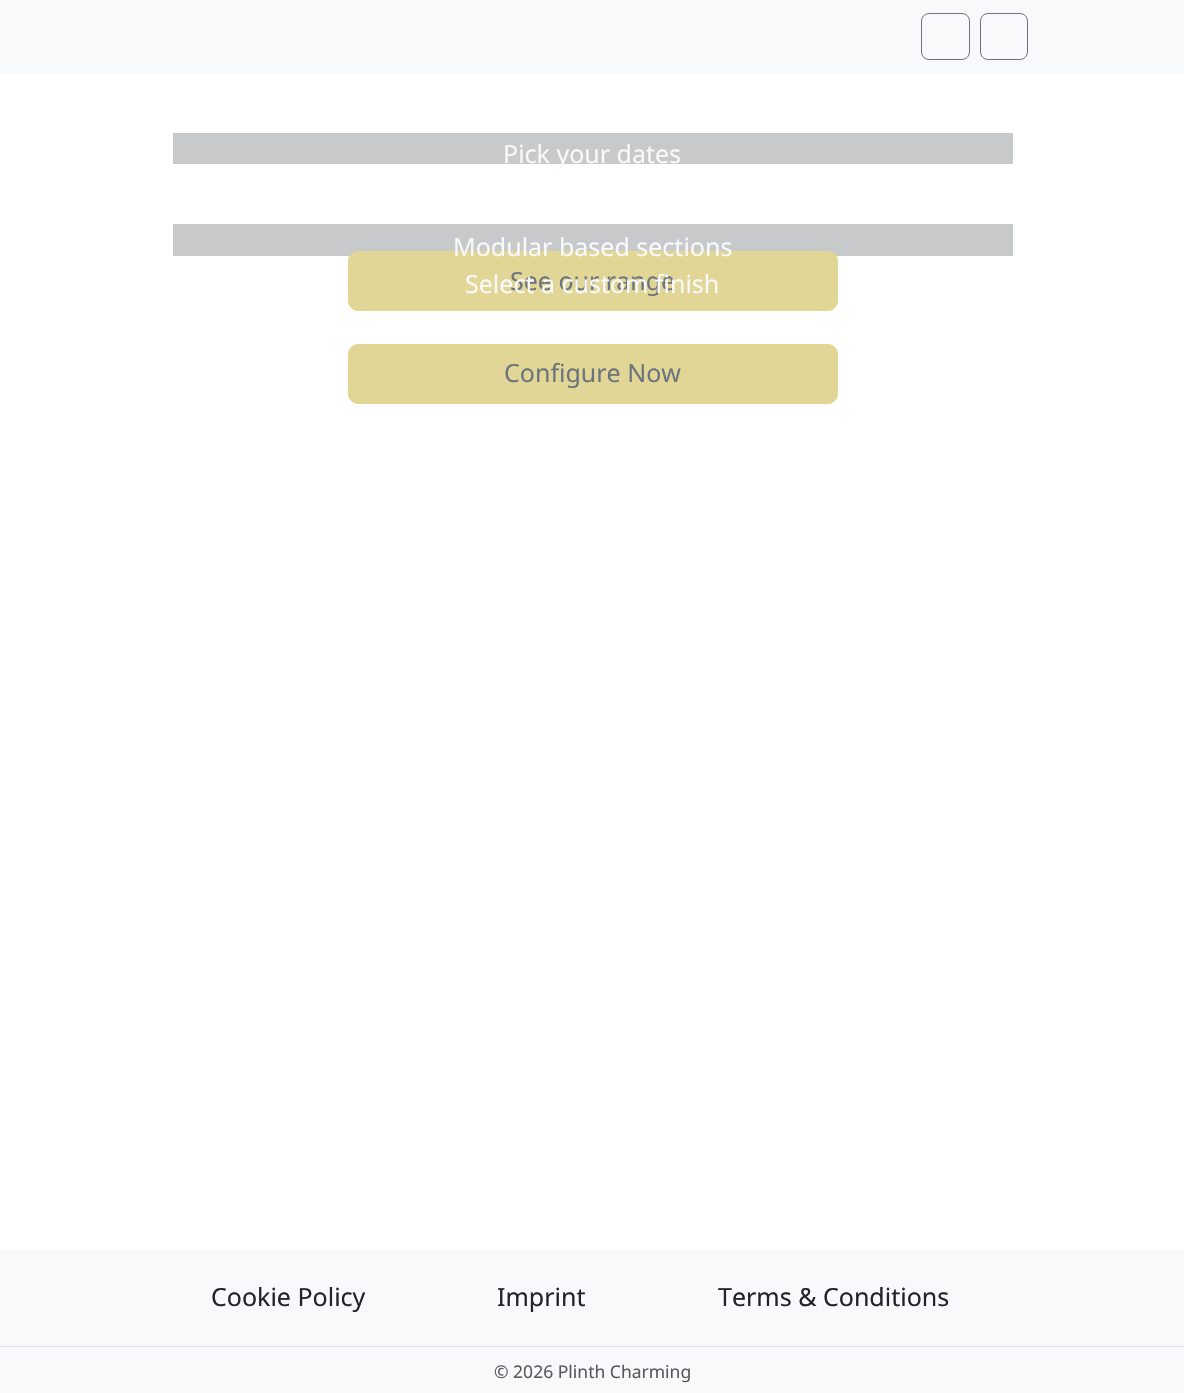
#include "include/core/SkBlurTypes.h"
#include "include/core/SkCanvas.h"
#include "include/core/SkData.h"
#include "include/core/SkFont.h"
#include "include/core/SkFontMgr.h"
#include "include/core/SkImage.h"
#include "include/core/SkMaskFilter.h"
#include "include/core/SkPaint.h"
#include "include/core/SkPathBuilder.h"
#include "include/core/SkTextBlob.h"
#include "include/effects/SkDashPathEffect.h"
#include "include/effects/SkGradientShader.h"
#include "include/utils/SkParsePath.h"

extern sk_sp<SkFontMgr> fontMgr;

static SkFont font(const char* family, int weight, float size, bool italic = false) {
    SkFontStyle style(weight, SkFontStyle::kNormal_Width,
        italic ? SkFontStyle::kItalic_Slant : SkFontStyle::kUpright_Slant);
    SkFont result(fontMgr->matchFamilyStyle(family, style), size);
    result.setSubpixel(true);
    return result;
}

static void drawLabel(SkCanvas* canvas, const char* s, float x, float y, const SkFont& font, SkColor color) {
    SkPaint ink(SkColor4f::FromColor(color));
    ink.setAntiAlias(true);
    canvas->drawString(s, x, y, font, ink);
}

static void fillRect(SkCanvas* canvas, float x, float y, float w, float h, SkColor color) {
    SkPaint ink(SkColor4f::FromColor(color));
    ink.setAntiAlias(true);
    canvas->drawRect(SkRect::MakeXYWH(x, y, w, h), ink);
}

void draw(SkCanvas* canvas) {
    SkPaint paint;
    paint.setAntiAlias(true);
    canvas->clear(0xFFFFFFFF);
    fillRect(canvas, 0, 0, 1184, 73, 0xFFF8F9FA);
    paint.setStroke(true);
    paint.setStrokeWidth(1);
    paint.setColor(0xFF6C757D);
    canvas->drawRoundRect(SkRect::MakeXYWH(921.5f, 13.5f, 48, 46), 7.5f, 7.5f, paint);
    canvas->drawRoundRect(SkRect::MakeXYWH(980.5f, 13.5f, 47, 46), 7.5f, 7.5f, paint);
    fillRect(canvas, 173, 133, 840, 31, 0xFFC8C9CA);
    SkFont font1 = font("Noto Sans", 400, 25);
    drawLabel(canvas, "Pick your dates", 503, 163, font1, 0xFFF8F9FA);
    fillRect(canvas, 173, 224, 840, 32, 0xFFC8C9CA);
    paint.setStroke(false);
    paint.setColor(0xFFE2D696);
    canvas->drawRoundRect(SkRect::MakeXYWH(348.5f, 251.5f, 489, 59), 9.5f, 9.5f, paint);
    paint.setStroke(true);
    canvas->drawRoundRect(SkRect::MakeXYWH(348.5f, 251.5f, 489, 59), 9.5f, 9.5f, paint);
    drawLabel(canvas, "See our range", 510, 290, font1, 0xFF6C757D);
    drawLabel(canvas, "Modular based sections", 453, 256, font1, 0xFFF8F9FA);
    drawLabel(canvas, "Select a custom finish", 465, 293, font1, 0xFFF8F9FA);
    paint.setStroke(false);
    canvas->drawRoundRect(SkRect::MakeXYWH(348.5f, 344.5f, 489, 59), 9.5f, 9.5f, paint);
    paint.setStroke(true);
    canvas->drawRoundRect(SkRect::MakeXYWH(348.5f, 344.5f, 489, 59), 9.5f, 9.5f, paint);
    drawLabel(canvas, "Configure Now", 504, 382, font1, 0xFF6C757D);
    fillRect(canvas, 0, 1249, 1184, 144, 0xFFF8F9FA);
    drawLabel(canvas, "Cookie Policy", 211, 1306, font1, 0xFF212529);
    drawLabel(canvas, "Imprint", 497, 1306, font1, 0xFF212529);
    drawLabel(canvas, "Terms & Conditions", 718, 1306, font1, 0xFF212529);
    fillRect(canvas, 0, 1346, 1184, 1, 0xFFDEE2E6);
    SkFont font2 = font("Noto Sans", 400, 17.5f);
    drawLabel(canvas, "© 2026 Plinth Charming", 494, 1378, font2, 0xFF575A5D);
}
